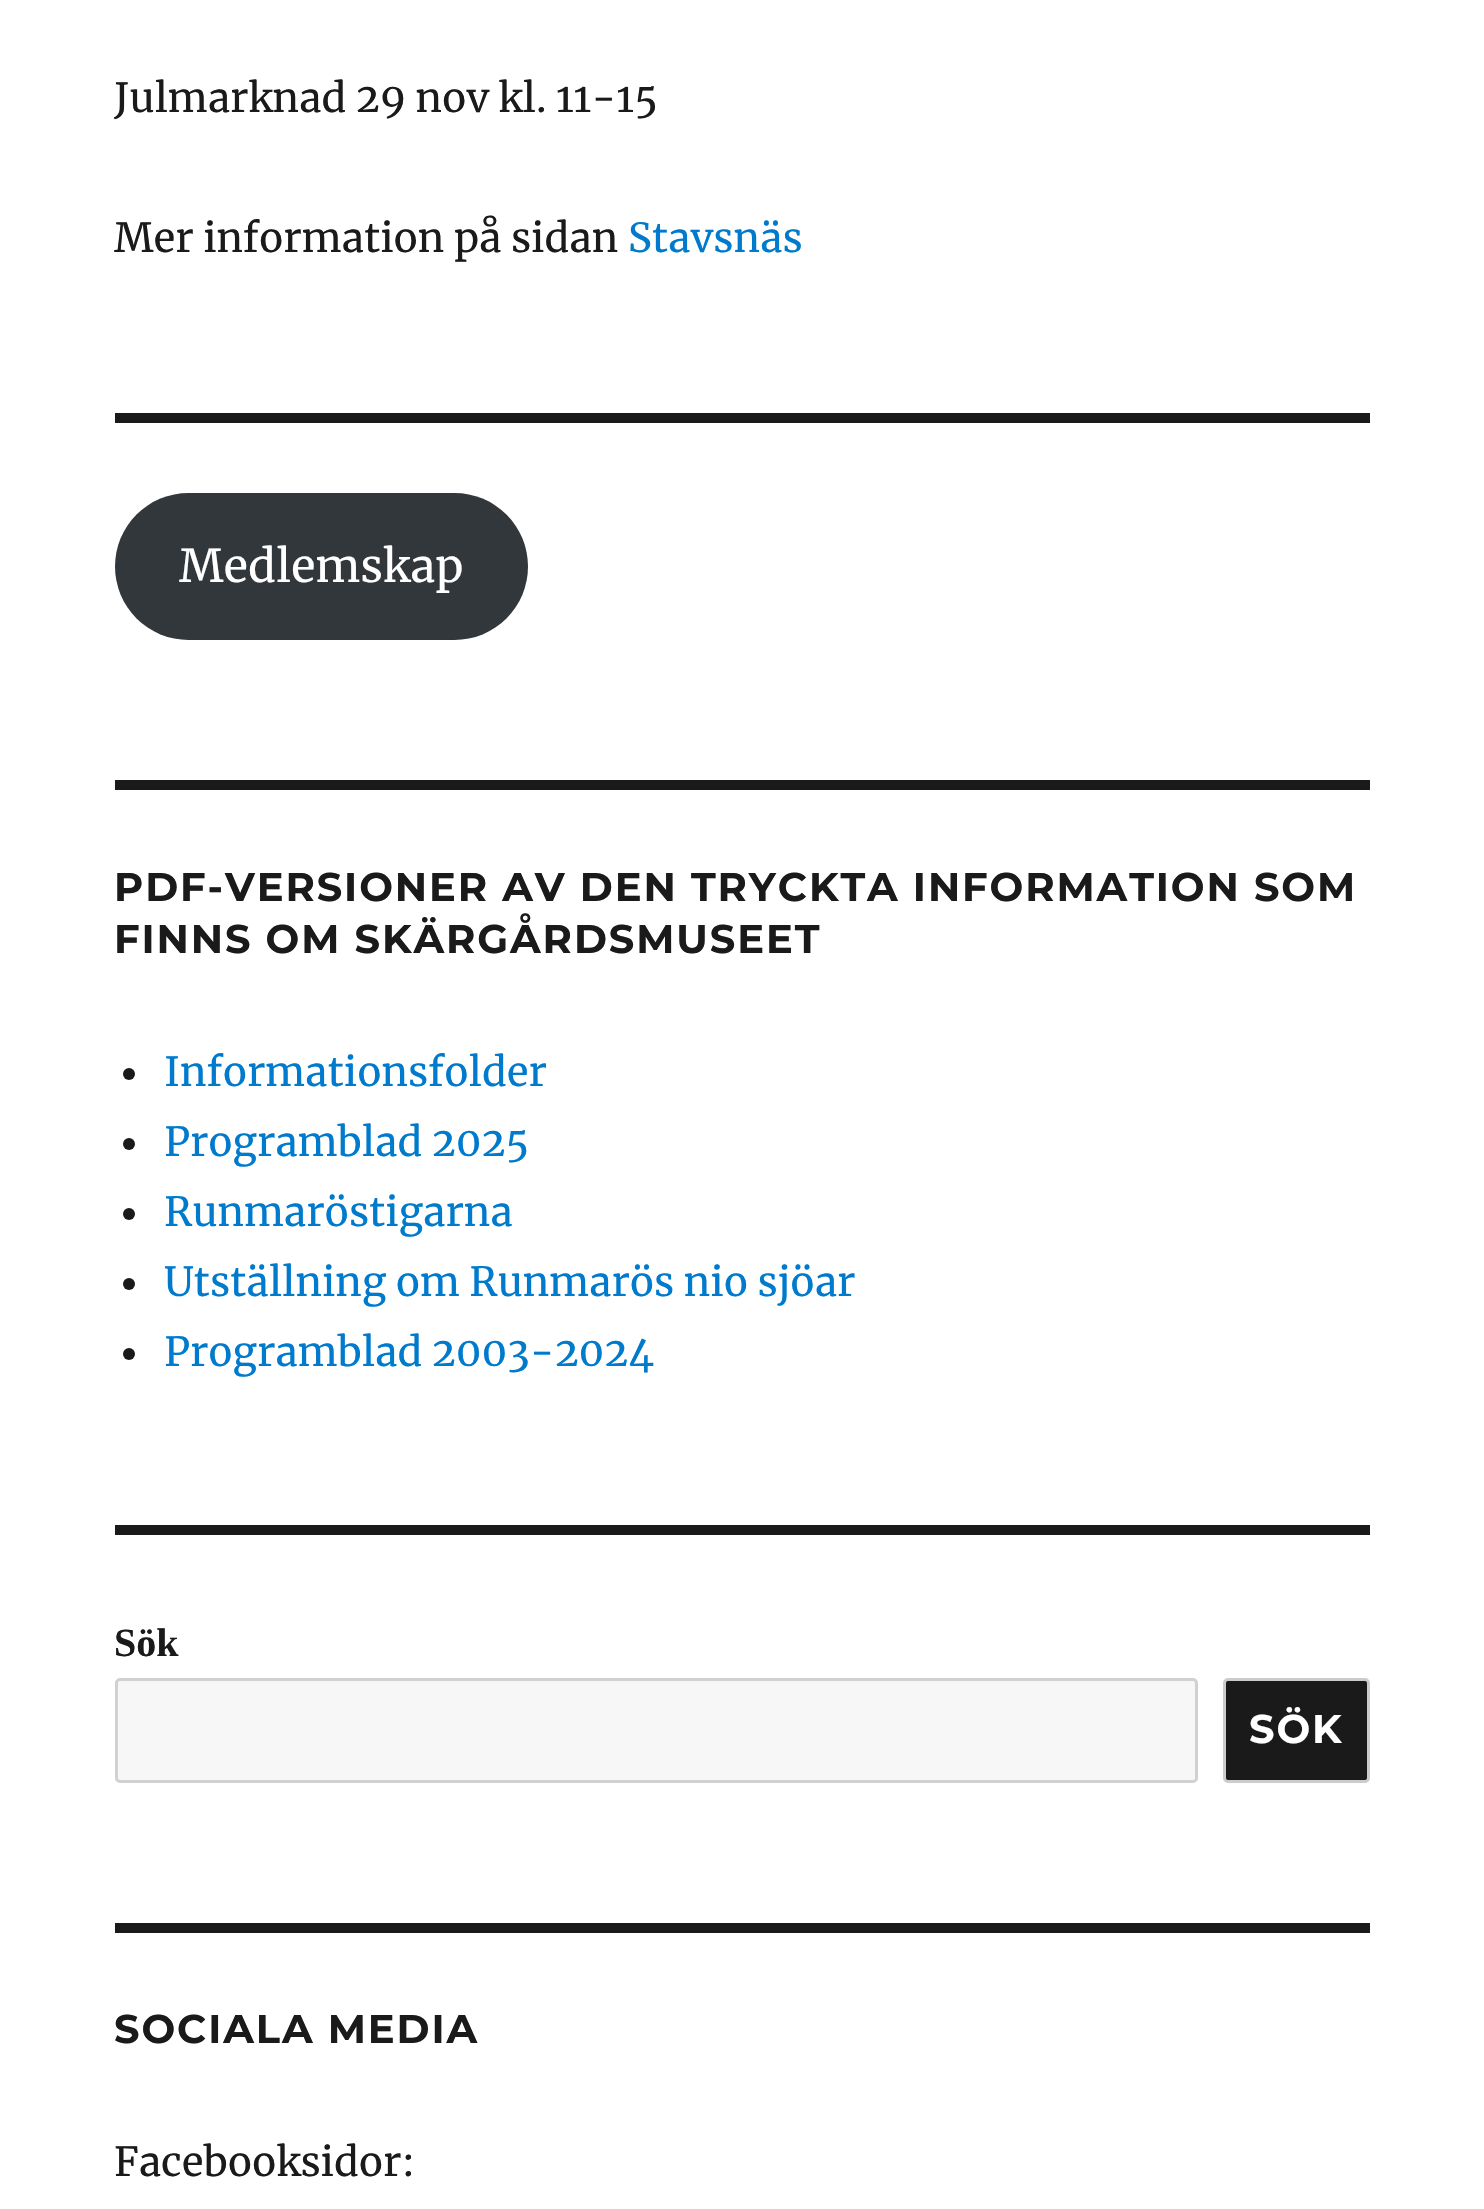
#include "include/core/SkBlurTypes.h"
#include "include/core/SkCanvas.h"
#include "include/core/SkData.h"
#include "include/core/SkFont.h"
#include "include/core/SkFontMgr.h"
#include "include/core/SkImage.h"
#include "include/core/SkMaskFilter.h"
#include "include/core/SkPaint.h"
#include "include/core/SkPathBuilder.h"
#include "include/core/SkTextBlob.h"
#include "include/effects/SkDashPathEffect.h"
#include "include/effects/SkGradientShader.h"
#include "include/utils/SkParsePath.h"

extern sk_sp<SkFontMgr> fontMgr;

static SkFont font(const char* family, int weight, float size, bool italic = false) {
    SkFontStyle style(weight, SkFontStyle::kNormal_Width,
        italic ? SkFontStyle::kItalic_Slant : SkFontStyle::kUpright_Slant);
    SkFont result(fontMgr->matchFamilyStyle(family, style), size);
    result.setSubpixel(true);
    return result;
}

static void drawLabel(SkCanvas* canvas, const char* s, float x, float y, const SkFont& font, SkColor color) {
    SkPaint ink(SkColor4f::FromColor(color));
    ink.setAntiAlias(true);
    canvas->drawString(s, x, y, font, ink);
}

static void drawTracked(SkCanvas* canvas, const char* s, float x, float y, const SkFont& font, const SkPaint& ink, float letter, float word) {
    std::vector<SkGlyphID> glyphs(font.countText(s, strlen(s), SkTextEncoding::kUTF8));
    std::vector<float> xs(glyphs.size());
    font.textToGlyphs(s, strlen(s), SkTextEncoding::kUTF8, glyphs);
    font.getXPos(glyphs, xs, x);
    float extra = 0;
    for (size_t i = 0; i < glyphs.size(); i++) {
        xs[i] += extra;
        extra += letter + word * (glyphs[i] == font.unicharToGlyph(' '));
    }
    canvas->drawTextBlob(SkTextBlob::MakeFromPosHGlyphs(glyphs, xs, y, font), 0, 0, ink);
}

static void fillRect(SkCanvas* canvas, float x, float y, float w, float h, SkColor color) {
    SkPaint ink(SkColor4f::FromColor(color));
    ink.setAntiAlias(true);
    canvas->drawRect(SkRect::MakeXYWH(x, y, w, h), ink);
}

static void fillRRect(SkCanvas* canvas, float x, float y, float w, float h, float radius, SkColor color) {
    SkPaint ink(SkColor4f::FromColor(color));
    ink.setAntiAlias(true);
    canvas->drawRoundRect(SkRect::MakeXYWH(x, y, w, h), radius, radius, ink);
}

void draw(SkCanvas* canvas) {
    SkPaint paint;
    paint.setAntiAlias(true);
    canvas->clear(0xFFFFFFFF);
    SkFont font1 = font("Merriweather", 400, 40);
    drawLabel(canvas, "Julmarknad 29 nov kl. 11-15", 114, 112, font1, 0xFF1A1A1A);
    drawLabel(canvas, "Mer information på sidan", 114, 252, font1, 0xFF1A1A1A);
    drawLabel(canvas, "Stavsnäs", 628, 252, font1, 0xFF007ACC);
    fillRect(canvas, 115, 413, 1255, 10, 0xFF1A1A1A);
    fillRRect(canvas, 115, 493, 413, 147, 73.5f, 0xFF32373C);
    SkFont font2 = font("Merriweather", 400, 45);
    drawLabel(canvas, "Medlemskap", 179, 582, font2, 0xFFFFFFFF);
    fillRect(canvas, 115, 780, 1255, 10, 0xFF1A1A1A);
    SkFont font3 = font("Montserrat", 100, 40);
    paint.setColor(0xFF1A1A1A);
    drawTracked(canvas, "PDF-VERSIONER AV DEN TRYCKTA INFORMATION SOM", 114, 901, font3, paint, 1.9f, 0);
    drawTracked(canvas, "FINNS OM SKÄRGÅRDSMUSEET", 114, 953, font3, paint, 1.9f, 0);
    canvas->drawCircle(129, 1074, 6, paint);
    drawLabel(canvas, "Informationsfolder", 164, 1086, font1, 0xFF007ACC);
    canvas->drawCircle(129, 1144, 6, paint);
    drawLabel(canvas, "Programblad 2025", 164, 1156, font1, 0xFF007ACC);
    canvas->drawCircle(129, 1214, 6, paint);
    drawLabel(canvas, "Runmaröstigarna", 164, 1226, font1, 0xFF007ACC);
    canvas->drawCircle(129, 1284, 6, paint);
    drawLabel(canvas, "Utställning om Runmarös nio sjöar", 164, 1296, font1, 0xFF007ACC);
    canvas->drawCircle(129, 1354, 6, paint);
    drawLabel(canvas, "Programblad 2003-2024", 164, 1366, font1, 0xFF007ACC);
    fillRect(canvas, 115, 1525, 1255, 10, 0xFF1A1A1A);
    SkFont font4 = font("Liberation Serif", 700, 40);
    drawLabel(canvas, "Sök", 114, 1656, font4, 0xFF1A1A1A);
    paint.setColor(0xFFF7F7F7);
    canvas->drawRoundRect(SkRect::MakeXYWH(116.5f, 1679.5f, 1080, 102), 3.5f, 3.5f, paint);
    paint.setStroke(true);
    paint.setStrokeWidth(3);
    paint.setColor(0xFFD1D1D1);
    canvas->drawRoundRect(SkRect::MakeXYWH(116.5f, 1679.5f, 1080, 102), 3.5f, 3.5f, paint);
    paint.setStroke(false);
    paint.setColor(0xFF1A1A1A);
    canvas->drawRoundRect(SkRect::MakeXYWH(1224.5f, 1679.5f, 144, 102), 3.5f, 3.5f, paint);
    paint.setStroke(true);
    paint.setColor(0xFFCCCCCC);
    canvas->drawRoundRect(SkRect::MakeXYWH(1224.5f, 1679.5f, 144, 102), 3.5f, 3.5f, paint);
    paint.setStroke(false);
    paint.setColor(0xFFFFFFFF);
    drawTracked(canvas, "SÖK", 1249, 1743, font3, paint, 1.9f, 0);
    fillRect(canvas, 115, 1923, 1255, 10, 0xFF1A1A1A);
    paint.setColor(0xFF1A1A1A);
    drawTracked(canvas, "SOCIALA MEDIA", 114, 2043, font3, paint, 1.9f, 0);
    drawLabel(canvas, "Facebooksidor:", 114, 2176, font1, 0xFF1A1A1A);
}
